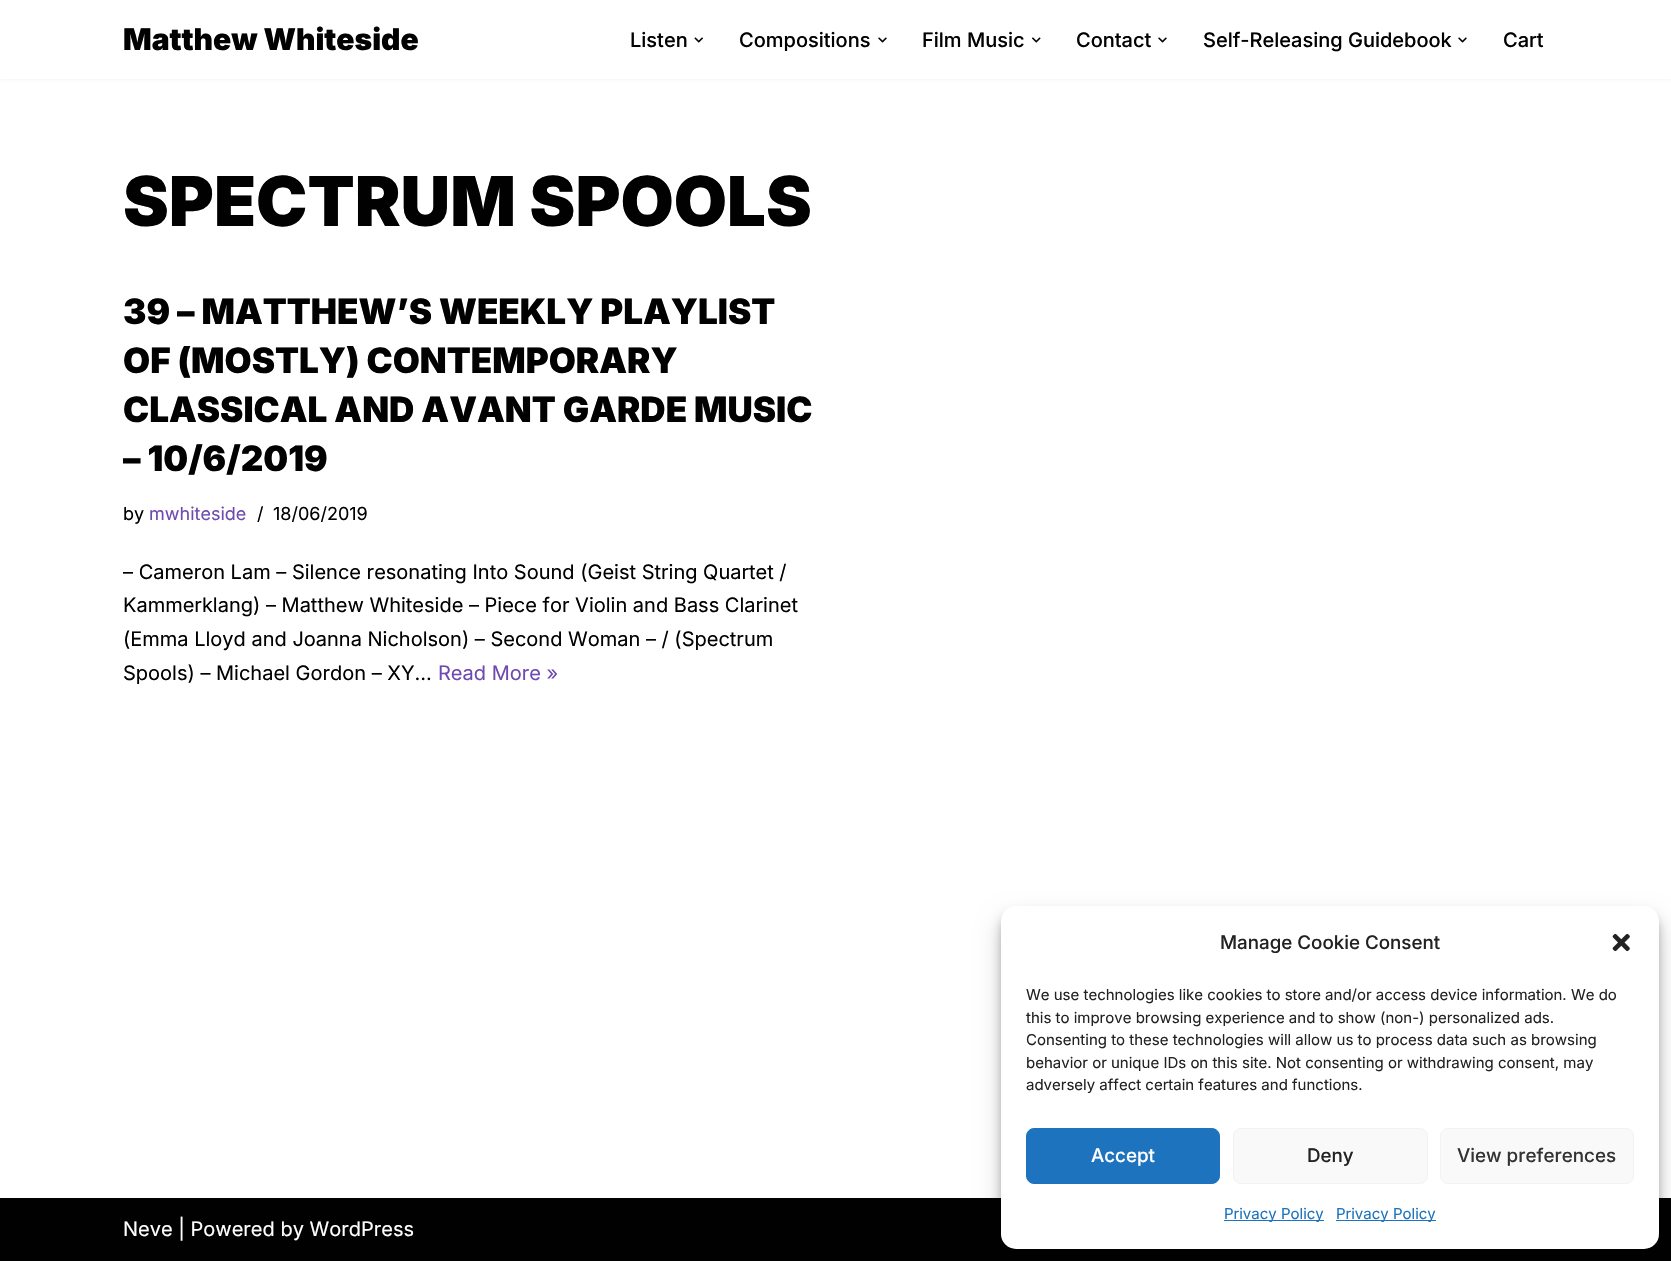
#include "include/core/SkBlurTypes.h"
#include "include/core/SkCanvas.h"
#include "include/core/SkData.h"
#include "include/core/SkFont.h"
#include "include/core/SkFontMgr.h"
#include "include/core/SkImage.h"
#include "include/core/SkMaskFilter.h"
#include "include/core/SkPaint.h"
#include "include/core/SkPathBuilder.h"
#include "include/core/SkTextBlob.h"
#include "include/effects/SkDashPathEffect.h"
#include "include/effects/SkGradientShader.h"
#include "include/utils/SkParsePath.h"

extern sk_sp<SkFontMgr> fontMgr;

static SkFont font(const char* family, int weight, float size, bool italic = false) {
    SkFontStyle style(weight, SkFontStyle::kNormal_Width,
        italic ? SkFontStyle::kItalic_Slant : SkFontStyle::kUpright_Slant);
    SkFont result(fontMgr->matchFamilyStyle(family, style), size);
    result.setSubpixel(true);
    return result;
}

static void drawLabel(SkCanvas* canvas, const char* s, float x, float y, const SkFont& font, SkColor color) {
    SkPaint ink(SkColor4f::FromColor(color));
    ink.setAntiAlias(true);
    canvas->drawString(s, x, y, font, ink);
}

static void fillRect(SkCanvas* canvas, float x, float y, float w, float h, SkColor color) {
    SkPaint ink(SkColor4f::FromColor(color));
    ink.setAntiAlias(true);
    canvas->drawRect(SkRect::MakeXYWH(x, y, w, h), ink);
}

static void fillRRect(SkCanvas* canvas, float x, float y, float w, float h, float radius, SkColor color) {
    SkPaint ink(SkColor4f::FromColor(color));
    ink.setAntiAlias(true);
    canvas->drawRoundRect(SkRect::MakeXYWH(x, y, w, h), radius, radius, ink);
}

static void drawPhoto(SkCanvas* canvas, const char* path, float x, float y, float w, float h) {
    auto image = SkImages::DeferredFromEncodedData(SkData::MakeFromFileName(path));
    canvas->drawImageRect(image, SkRect::MakeXYWH(x, y, w, h), SkSamplingOptions());
}

void draw(SkCanvas* canvas) {
    SkPaint paint;
    paint.setAntiAlias(true);
    canvas->clear(0xFFFFFFFF);
    paint.setColor(0x1A000000);
    paint.setMaskFilter(SkMaskFilter::MakeBlur(kNormal_SkBlurStyle, 2));
    canvas->drawRect(SkRect::MakeXYWH(0, -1, 1671, 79), paint);
    paint.setMaskFilter(nullptr);
    fillRect(canvas, 0, 0, 1671, 79, 0xFFFFFFFF);
    SkFont font1 = font("Inter", 900, 30);
    drawLabel(canvas, "Matthew Whiteside", 123, 50, font1, 0xFF010101);
    SkFont font2 = font("Inter", 500, 20);
    drawLabel(canvas, "Listen", 630, 47, font2, 0xFF010101);
    drawPhoto(canvas, "assets/img1.png", 694, 37, 9, 6);
    drawLabel(canvas, "Compositions", 739, 47, font2, 0xFF010101);
    drawPhoto(canvas, "assets/img2.png", 878, 37, 9, 6);
    drawLabel(canvas, "Film Music", 922, 47, font2, 0xFF010101);
    drawPhoto(canvas, "assets/img3.png", 1032, 37, 9, 6);
    drawLabel(canvas, "Contact", 1076, 47, font2, 0xFF010101);
    drawPhoto(canvas, "assets/img2.png", 1158, 37, 9, 6);
    drawLabel(canvas, "Self-Releasing Guidebook", 1203, 47, font2, 0xFF010101);
    drawPhoto(canvas, "assets/img2.png", 1458, 37, 9, 6);
    drawLabel(canvas, "Cart", 1503, 47, font2, 0xFF010101);
    SkFont font3 = font("Inter", 900, 68.75f);
    drawLabel(canvas, "SPECTRUM SPOOLS", 123, 226, font3, 0xFF010101);
    SkFont font4 = font("Inter", 900, 35);
    drawLabel(canvas, "39 – MATTHEW’S WEEKLY PLAYLIST", 123, 324, font4, 0xFF010101);
    drawLabel(canvas, "OF (MOSTLY) CONTEMPORARY", 123, 373, font4, 0xFF010101);
    drawLabel(canvas, "CLASSICAL AND AVANT GARDE MUSIC", 123, 422, font4, 0xFF010101);
    drawLabel(canvas, "– 10/6/2019", 123, 471, font4, 0xFF010101);
    SkFont font5 = font("Inter", 400, 18);
    drawLabel(canvas, "by", 123, 520, font5, 0xFF010101);
    drawLabel(canvas, "mwhiteside", 149, 520, font5, 0xFF6F4AB0);
    drawLabel(canvas, "/", 257, 520, font5, 0xFF010101);
    drawLabel(canvas, "18/06/2019", 273, 520, font5, 0xFF010101);
    SkFont font6 = font("Inter", 400, 20);
    drawLabel(canvas, "– Cameron Lam – Silence resonating Into Sound (Geist String Quartet /", 123, 579, font6, 0xFF010101);
    drawLabel(canvas, "Kammerklang) – Matthew Whiteside – Piece for Violin and Bass Clarinet", 123, 612, font6, 0xFF010101);
    drawLabel(canvas, "(Emma Lloyd and Joanna Nicholson) – Second Woman – / (Spectrum", 123, 646, font6, 0xFF010101);
    drawLabel(canvas, "Spools) – Michael Gordon – XY…", 123, 680, font6, 0xFF010101);
    drawLabel(canvas, "Read More »", 438, 680, font6, 0xFF6F4AB0);
    fillRect(canvas, 0, 1198, 1671, 63, 0xFF010101);
    drawLabel(canvas, "Neve | Powered by WordPress", 123, 1236, font6, 0xFFFFFFFF);
    paint.setColor(0x3B000000);
    paint.setMaskFilter(SkMaskFilter::MakeBlur(kNormal_SkBlurStyle, 4));
    canvas->drawRoundRect(SkRect::MakeXYWH(1001, 914, 658, 342), 15, 15, paint);
    paint.setMaskFilter(nullptr);
    paint.setColor(0x30000000);
    paint.setMaskFilter(SkMaskFilter::MakeBlur(kNormal_SkBlurStyle, 12.5f));
    canvas->drawRoundRect(SkRect::MakeXYWH(1001, 919, 658, 342), 15, 15, paint);
    paint.setMaskFilter(nullptr);
    fillRRect(canvas, 1001, 906, 658, 343, 15, 0xFFFFFFFF);
    SkFont font7 = font("Inter", 500, 18.75f);
    drawLabel(canvas, "Manage Cookie Consent", 1220, 949, font7, 0xFF222222);
    drawPhoto(canvas, "assets/img4.png", 1612, 933, 18, 19);
    SkFont font8 = font("Inter", 400, 15);
    drawLabel(canvas, "We use technologies like cookies to store and/or access device information. We do", 1026, 1000, font8, 0xFF222222);
    drawLabel(canvas, "this to improve browsing experience and to show (non-) personalized ads.", 1026, 1023, font8, 0xFF222222);
    drawLabel(canvas, "Consenting to these technologies will allow us to process data such as browsing", 1026, 1045, font8, 0xFF222222);
    drawLabel(canvas, "behavior or unique IDs on this site. Not consenting or withdrawing consent, may", 1026, 1068, font8, 0xFF222222);
    drawLabel(canvas, "adversely affect certain features and functions.", 1026, 1090, font8, 0xFF222222);
    paint.setColor(0xFF1E73BE);
    canvas->drawRoundRect(SkRect::MakeXYWH(1026.5f, 1128.5f, 193, 55), 7.5f, 7.5f, paint);
    paint.setStroke(true);
    paint.setStrokeWidth(1);
    canvas->drawRoundRect(SkRect::MakeXYWH(1026.5f, 1128.5f, 193, 55), 7.5f, 7.5f, paint);
    drawLabel(canvas, "Accept", 1091, 1162, font7, 0xFFFFFFFF);
    paint.setStroke(false);
    paint.setColor(0xFFF9F9F9);
    canvas->drawRoundRect(SkRect::MakeXYWH(1233.5f, 1128.5f, 194, 55), 7.5f, 7.5f, paint);
    paint.setStroke(true);
    paint.setColor(0xFFF2F2F2);
    canvas->drawRoundRect(SkRect::MakeXYWH(1233.5f, 1128.5f, 194, 55), 7.5f, 7.5f, paint);
    drawLabel(canvas, "Deny", 1307, 1162, font7, 0xFF222222);
    paint.setStroke(false);
    paint.setColor(0xFFF9F9F9);
    canvas->drawRoundRect(SkRect::MakeXYWH(1440.5f, 1128.5f, 193, 55), 7.5f, 7.5f, paint);
    paint.setStroke(true);
    paint.setColor(0xFFF2F2F2);
    canvas->drawRoundRect(SkRect::MakeXYWH(1440.5f, 1128.5f, 193, 55), 7.5f, 7.5f, paint);
    drawLabel(canvas, "View preferences", 1457, 1162, font7, 0xFF333333);
    fillRect(canvas, 1224, 1220, 100, 1, 0xFF1E73BE);
    drawLabel(canvas, "Privacy Policy", 1224, 1219, font8, 0xFF1E73BE);
    fillRect(canvas, 1336, 1220, 100, 1, 0xFF1E73BE);
    drawLabel(canvas, "Privacy Policy", 1336, 1219, font8, 0xFF1E73BE);
}
